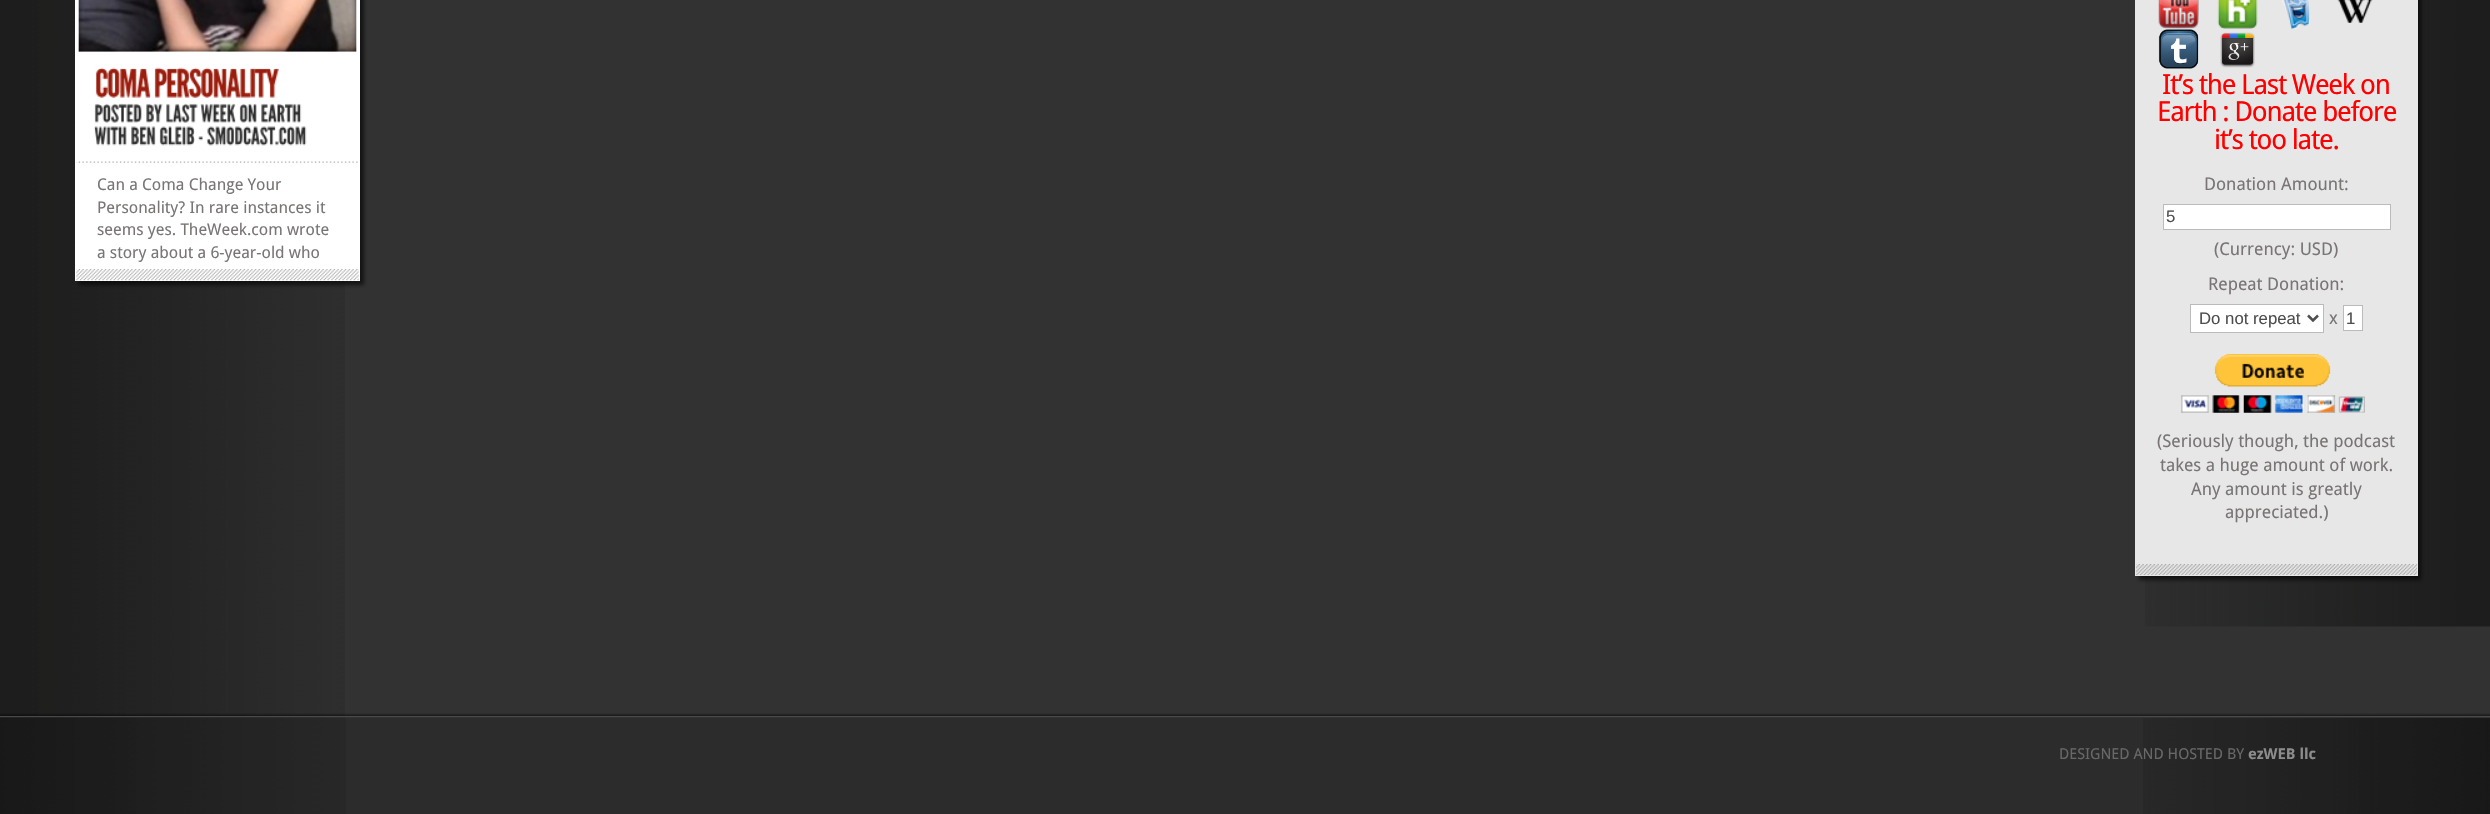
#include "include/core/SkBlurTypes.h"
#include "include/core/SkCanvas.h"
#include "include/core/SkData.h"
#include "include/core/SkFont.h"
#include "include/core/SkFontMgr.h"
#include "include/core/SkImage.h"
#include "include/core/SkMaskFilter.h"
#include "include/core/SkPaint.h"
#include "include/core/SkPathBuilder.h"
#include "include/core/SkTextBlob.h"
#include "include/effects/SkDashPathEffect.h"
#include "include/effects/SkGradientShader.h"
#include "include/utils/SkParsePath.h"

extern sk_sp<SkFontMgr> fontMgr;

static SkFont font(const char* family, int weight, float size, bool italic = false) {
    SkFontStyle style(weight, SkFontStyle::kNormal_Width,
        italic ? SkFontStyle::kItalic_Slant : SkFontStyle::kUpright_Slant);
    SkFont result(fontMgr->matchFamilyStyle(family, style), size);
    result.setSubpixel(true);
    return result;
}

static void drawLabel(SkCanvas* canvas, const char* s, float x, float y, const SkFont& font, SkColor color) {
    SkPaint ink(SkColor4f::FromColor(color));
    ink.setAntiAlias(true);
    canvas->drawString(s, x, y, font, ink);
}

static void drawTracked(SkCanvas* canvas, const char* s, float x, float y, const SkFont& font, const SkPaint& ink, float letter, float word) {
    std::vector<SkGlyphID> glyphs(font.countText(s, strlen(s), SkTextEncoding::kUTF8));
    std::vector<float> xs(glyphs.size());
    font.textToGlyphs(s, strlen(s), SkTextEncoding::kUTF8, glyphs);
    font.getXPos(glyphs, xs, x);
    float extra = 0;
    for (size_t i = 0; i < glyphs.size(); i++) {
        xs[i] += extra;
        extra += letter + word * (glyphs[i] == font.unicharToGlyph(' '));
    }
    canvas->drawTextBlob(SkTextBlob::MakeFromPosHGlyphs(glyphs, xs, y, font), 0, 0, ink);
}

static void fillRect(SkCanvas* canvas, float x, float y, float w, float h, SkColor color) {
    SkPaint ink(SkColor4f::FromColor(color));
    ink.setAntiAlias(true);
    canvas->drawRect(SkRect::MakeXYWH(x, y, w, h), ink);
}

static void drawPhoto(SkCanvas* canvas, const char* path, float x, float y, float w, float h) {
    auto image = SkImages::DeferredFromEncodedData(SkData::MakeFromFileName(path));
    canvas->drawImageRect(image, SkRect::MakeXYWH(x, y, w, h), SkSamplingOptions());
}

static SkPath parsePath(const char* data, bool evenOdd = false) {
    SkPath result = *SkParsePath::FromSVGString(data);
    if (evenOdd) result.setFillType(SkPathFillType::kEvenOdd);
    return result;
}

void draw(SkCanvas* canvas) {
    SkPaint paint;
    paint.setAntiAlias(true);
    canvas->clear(0xFF2C2C2C);
    fillRect(canvas, 0, 0, 2490, 718, 0xFF323232);
    drawPhoto(canvas, "assets/img1.png", 0, 0, 345, 718);
    drawPhoto(canvas, "assets/img2.png", 2145, 0, 345, 627);
    paint.setColor(0x99000000);
    paint.setMaskFilter(SkMaskFilter::MakeBlur(kNormal_SkBlurStyle, 2));
    canvas->drawRect(SkRect::MakeXYWH(79, -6, 285, 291), paint);
    paint.setMaskFilter(nullptr);
    fillRect(canvas, 75, 0, 285, 281, 0xFFFFFFFF);
    drawPhoto(canvas, "assets/img3.png", 78, 0, 279, 52);
    drawPhoto(canvas, "assets/img4.png", 78, 0, 279, 52);
    drawPhoto(canvas, "assets/img5.png", 96, 67, 55, 31);
    drawPhoto(canvas, "assets/img6.png", 154, 67, 125, 31);
    drawPhoto(canvas, "assets/img7.png", 94, 103, 48, 20);
    drawPhoto(canvas, "assets/img8.png", 166, 103, 32, 20);
    drawPhoto(canvas, "assets/img9.png", 200, 103, 36, 20);
    drawPhoto(canvas, "assets/img10.png", 239, 103, 18, 20);
    drawPhoto(canvas, "assets/img11.png", 261, 103, 41, 20);
    drawPhoto(canvas, "assets/img12.png", 94, 126, 33, 20);
    drawPhoto(canvas, "assets/img13.png", 131, 126, 25, 20);
    drawPhoto(canvas, "assets/img14.png", 159, 126, 36, 20);
    drawPhoto(canvas, "assets/img15.png", 198, 136, 5, 5);
    drawPhoto(canvas, "assets/img16.png", 206, 126, 101, 20);
    drawPhoto(canvas, "assets/img17.png", 146, 103, 17, 20);
    drawPhoto(canvas, "assets/img18.png", 76, 269, 283, 12);
    drawPhoto(canvas, "assets/img19.png", 76, 161, 282, 2);
    SkFont font1 = font("Droid Sans", 400, 16.25f);
    drawLabel(canvas, "Can a Coma Change Your", 97, 190, font1, 0xFF7A7575);
    drawLabel(canvas, "Personality? In rare instances it", 97, 213, font1, 0xFF7A7575);
    drawLabel(canvas, "seems yes. TheWeek.com wrote", 97, 235, font1, 0xFF7A7575);
    drawLabel(canvas, "a story about a 6-year-old who", 97, 258, font1, 0xFF7A7575);
    paint.setMaskFilter(SkMaskFilter::MakeBlur(kNormal_SkBlurStyle, 2));
    canvas->drawRect(SkRect::MakeXYWH(2139, -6, 282, 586), paint);
    paint.setMaskFilter(nullptr);
    fillRect(canvas, 2136, 0, 281, 575, 0xFFE7E7E7);
    drawPhoto(canvas, "assets/img20.png", 2136, 564, 281, 11);
    paint.setStroke(true);
    paint.setStrokeWidth(1);
    paint.setColor(0xFFE7E7E7);
    canvas->drawRect(SkRect::MakeXYWH(2135.5f, -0.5f, 282, 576), paint);
    drawPhoto(canvas, "assets/img21.png", 2158, 0, 41, 29);
    drawPhoto(canvas, "assets/img22.png", 2217, 0, 41, 29);
    drawPhoto(canvas, "assets/img23.png", 2282, 0, 28, 29);
    drawPhoto(canvas, "assets/img24.png", 2337, 0, 36, 23);
    drawPhoto(canvas, "assets/img25.png", 2158, 29, 41, 40);
    drawPhoto(canvas, "assets/img26.png", 2220, 32, 35, 36);
    SkFont font2 = font("Droid Sans", 400, 27.5f);
    paint.setStroke(false);
    paint.setColor(0xFFFF0000);
    drawTracked(canvas, "It’s the Last Week on", 2162, 94, font2, paint, -1.25f, 0);
    drawTracked(canvas, "Earth : Donate before", 2157, 121, font2, paint, -1.25f, 0);
    drawTracked(canvas, "it’s too late.", 2214, 149, font2, paint, -1.25f, 0);
    SkFont font3 = font("Droid Sans", 400, 17.5f);
    drawLabel(canvas, "Donation Amount:", 2204, 190, font3, 0xFF7A7575);
    paint.setColor(0xFFFFFFFF);
    canvas->drawRect(SkRect::MakeXYWH(2163.5f, 204.5f, 227, 25), paint);
    paint.setStroke(true);
    paint.setColor(0xFFBBBBBB);
    canvas->drawRect(SkRect::MakeXYWH(2163.5f, 204.5f, 227, 25), paint);
    SkFont font4 = font("Liberation Sans", 400, 16.75f);
    drawLabel(canvas, "5", 2166, 222, font4, 0xFF4E4E4E);
    drawLabel(canvas, "(Currency: USD)", 2214, 255, font3, 0xFF7A7575);
    drawLabel(canvas, "Repeat Donation:", 2208, 290, font3, 0xFF7A7575);
    paint.setStroke(false);
    paint.setColor(0xFFFFFFFF);
    canvas->drawRect(SkRect::MakeXYWH(2190.5f, 304.5f, 133, 28), paint);
    paint.setStroke(true);
    paint.setColor(0xFFBBBBBB);
    canvas->drawRect(SkRect::MakeXYWH(2190.5f, 304.5f, 133, 28), paint);
    paint.setStrokeWidth(2.5f);
    paint.setColor(0xFF4E4E4E);
    canvas->drawPath(parsePath("M2308 315.5L2313 320.5L2318 315.5"), paint);
    drawLabel(canvas, "Do not repeat", 2199, 324, font4, 0xFF4E4E4E);
    drawLabel(canvas, "x", 2329, 324, font3, 0xFF7A7575);
    paint.setStroke(false);
    paint.setColor(0xFFFFFFFF);
    canvas->drawRect(SkRect::MakeXYWH(2343.5f, 305.5f, 19, 25), paint);
    paint.setStroke(true);
    paint.setStrokeWidth(1);
    paint.setColor(0xFFBBBBBB);
    canvas->drawRect(SkRect::MakeXYWH(2343.5f, 305.5f, 19, 25), paint);
    drawLabel(canvas, "1", 2346, 324, font4, 0xFF4E4E4E);
    drawPhoto(canvas, "assets/img27.png", 2181, 354, 184, 59);
    drawLabel(canvas, "(Seriously though, the podcast", 2157, 447, font3, 0xFF7A7575);
    drawLabel(canvas, "takes a huge amount of work.", 2160, 471, font3, 0xFF7A7575);
    drawLabel(canvas, "Any amount is greatly", 2191, 495, font3, 0xFF7A7575);
    drawLabel(canvas, "appreciated.)", 2225, 518, font3, 0xFF7A7575);
    drawPhoto(canvas, "assets/img28.png", 0, 713, 2490, 3);
    fillRect(canvas, 0, 716, 2490, 1, 0xFF4A4A4A);
    drawPhoto(canvas, "assets/img29.png", 0, 718, 346, 96);
    drawPhoto(canvas, "assets/img30.png", 2143, 718, 347, 96);
    SkFont font5 = font("Droid Sans", 400, 15);
    drawLabel(canvas, "DESIGNED AND HOSTED BY", 2059, 759, font5, 0xFF686868);
    SkFont font6 = font("Droid Sans", 700, 15);
    drawLabel(canvas, "ezWEB llc", 2248, 759, font6, 0xFF8C8C8C);
}
